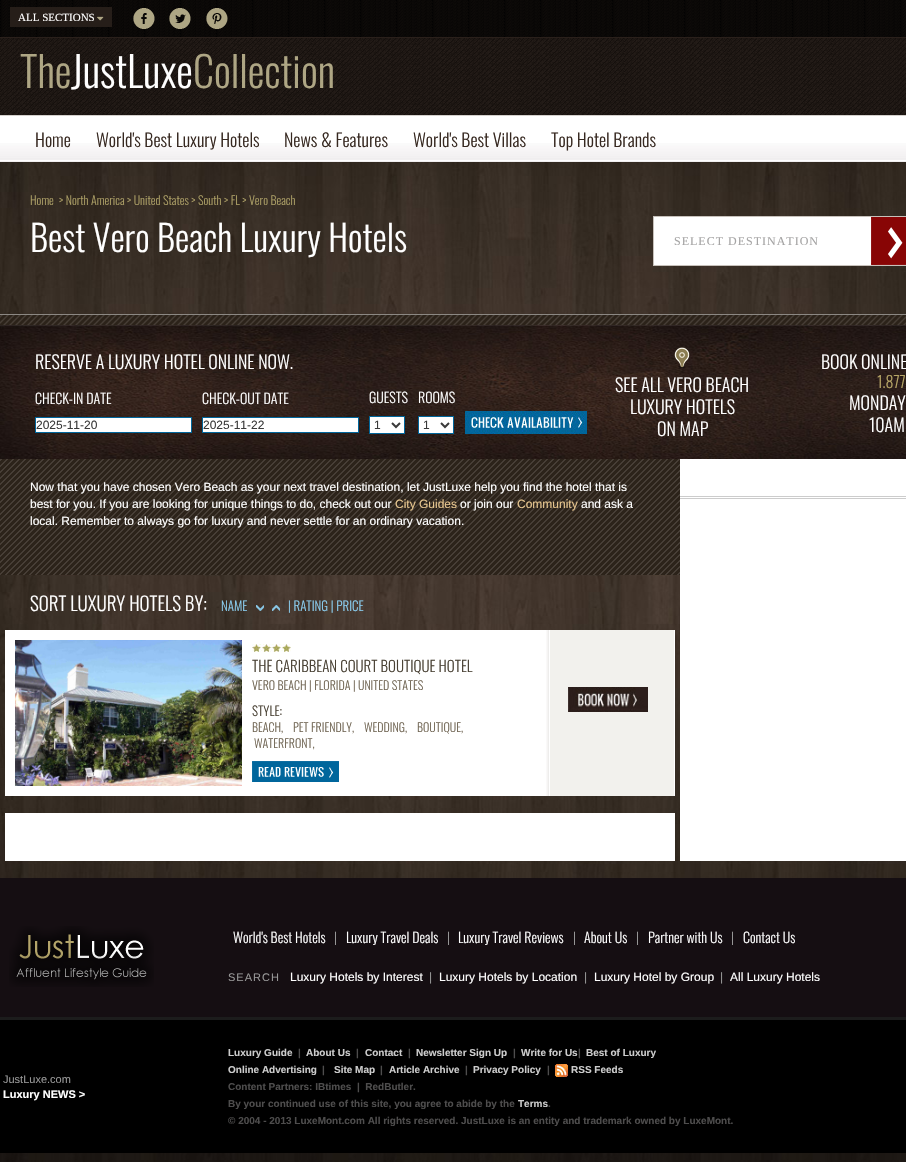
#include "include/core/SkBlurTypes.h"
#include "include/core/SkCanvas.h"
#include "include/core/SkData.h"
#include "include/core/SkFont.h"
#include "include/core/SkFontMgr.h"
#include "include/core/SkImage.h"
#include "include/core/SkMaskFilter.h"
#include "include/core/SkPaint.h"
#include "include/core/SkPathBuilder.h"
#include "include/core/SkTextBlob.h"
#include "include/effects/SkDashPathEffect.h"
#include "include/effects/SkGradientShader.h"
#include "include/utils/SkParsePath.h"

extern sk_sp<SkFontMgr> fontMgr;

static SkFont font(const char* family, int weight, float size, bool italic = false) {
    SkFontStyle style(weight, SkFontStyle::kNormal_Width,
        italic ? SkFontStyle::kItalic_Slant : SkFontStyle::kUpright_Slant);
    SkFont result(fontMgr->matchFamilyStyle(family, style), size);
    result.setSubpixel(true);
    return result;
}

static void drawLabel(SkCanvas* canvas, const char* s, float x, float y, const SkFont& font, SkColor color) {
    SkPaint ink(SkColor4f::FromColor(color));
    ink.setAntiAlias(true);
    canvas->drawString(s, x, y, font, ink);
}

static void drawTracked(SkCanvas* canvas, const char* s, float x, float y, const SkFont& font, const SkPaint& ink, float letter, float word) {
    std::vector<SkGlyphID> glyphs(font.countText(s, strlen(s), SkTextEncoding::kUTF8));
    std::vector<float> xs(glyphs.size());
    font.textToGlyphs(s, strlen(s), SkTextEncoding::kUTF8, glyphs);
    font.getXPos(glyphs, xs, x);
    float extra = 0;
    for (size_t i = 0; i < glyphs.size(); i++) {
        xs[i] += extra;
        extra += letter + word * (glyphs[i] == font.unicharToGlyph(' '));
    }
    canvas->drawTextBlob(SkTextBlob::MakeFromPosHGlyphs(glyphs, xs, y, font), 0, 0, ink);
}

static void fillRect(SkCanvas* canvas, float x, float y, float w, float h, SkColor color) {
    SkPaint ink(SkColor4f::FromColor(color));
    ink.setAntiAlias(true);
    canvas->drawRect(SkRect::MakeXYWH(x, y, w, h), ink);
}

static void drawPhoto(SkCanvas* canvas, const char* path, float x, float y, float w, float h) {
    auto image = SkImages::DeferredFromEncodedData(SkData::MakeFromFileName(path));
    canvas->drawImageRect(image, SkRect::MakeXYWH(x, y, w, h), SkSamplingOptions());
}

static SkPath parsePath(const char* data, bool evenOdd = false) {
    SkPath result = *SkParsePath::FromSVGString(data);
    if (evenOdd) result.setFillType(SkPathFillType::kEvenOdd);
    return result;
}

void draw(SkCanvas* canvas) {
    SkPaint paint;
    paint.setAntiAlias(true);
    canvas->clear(0xFFFFFFFF);
    drawPhoto(canvas, "assets/img1.png", 0, 162, 906, 1000);
    drawPhoto(canvas, "assets/img2.png", 0, 0, 906, 37);
    fillRect(canvas, 0, 37, 906, 1, 0xFF2A201B);
    fillRect(canvas, 10, 7, 102, 20, 0xFF261E19);
    SkFont font1 = font("Liberation Serif", 400, 11);
    drawLabel(canvas, "ALL SECTIONS", 18, 21, font1, 0xFFFFFFFF);
    drawPhoto(canvas, "assets/img3.png", 97, 16, 7, 5);
    drawPhoto(canvas, "assets/img4.png", 133, 8, 22, 21);
    drawPhoto(canvas, "assets/img5.png", 169, 8, 22, 21);
    drawPhoto(canvas, "assets/img6.png", 206, 8, 22, 21);
    drawPhoto(canvas, "assets/img7.png", 0, 38, 906, 77);
    fillRect(canvas, 0, 115, 906, 1, 0xFFD4D0CC);
    SkFont font2 = font("Oswald", 300, 42);
    drawLabel(canvas, "The", 20, 88, font2, 0xFFAEA684);
    drawLabel(canvas, "JustLuxe", 71, 88, font2, 0xFFFFFFFF);
    drawLabel(canvas, "Collection", 193, 88, font2, 0xFFAEA684);
    drawPhoto(canvas, "assets/img8.png", 0, 143, 906, 19);
    SkFont font3 = font("Oswald", 300, 18);
    drawLabel(canvas, "Home", 35, 147, font3, 0xFF362820);
    drawLabel(canvas, "World's Best Luxury Hotels", 96, 147, font3, 0xFF362820);
    drawLabel(canvas, "News & Features", 284, 147, font3, 0xFF362820);
    drawLabel(canvas, "World's Best Villas", 413, 147, font3, 0xFF362820);
    drawLabel(canvas, "Top Hotel Brands", 551, 147, font3, 0xFF362820);
    SkFont font4 = font("Oswald", 300, 12);
    drawLabel(canvas, "Home", 30, 205, font4, 0xFFAC9F66);
    drawLabel(canvas, "> North America > United States > South > FL > Vero Beach", 59, 205, font4, 0xFFAC9F66);
    SkFont font5 = font("Oswald", 300, 36);
    drawLabel(canvas, "Best Vero Beach Luxury Hotels", 30, 252, font5, 0xFFFFFFFF);
    fillRect(canvas, 654, 217, 217, 48, 0xFFFFFFFF);
    drawPhoto(canvas, "assets/img9.png", 871, 217, 35, 48);
    paint.setStroke(true);
    paint.setStrokeWidth(1);
    paint.setColor(0xFFC7C1BB);
    canvas->drawRect(SkRect::MakeXYWH(653.5f, 216.5f, 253, 49), paint);
    SkFont font6 = font("Liberation Serif", 400, 12);
    paint.setStroke(false);
    paint.setColor(0xFFA5A4A4);
    drawTracked(canvas, "SELECT DESTINATION", 674, 245, font6, paint, 1, 0);
    drawPhoto(canvas, "assets/img10.png", 0, 315, 906, 10);
    fillRect(canvas, 0, 314, 906, 1, 0xFF8C8883);
    drawPhoto(canvas, "assets/img11.png", 0, 325, 906, 134);
    drawLabel(canvas, "RESERVE A LUXURY HOTEL ONLINE NOW.", 35, 369, font3, 0xFFFFFFFF);
    SkFont font7 = font("Oswald", 300, 14);
    drawLabel(canvas, "CHECK-IN DATE", 35, 404, font7, 0xFFFFFFFF);
    paint.setColor(0xFFFFFFFF);
    canvas->drawRect(SkRect::MakeXYWH(35.5f, 417.5f, 156, 15), paint);
    paint.setStroke(true);
    paint.setColor(0xFF00669B);
    canvas->drawRect(SkRect::MakeXYWH(35.5f, 417.5f, 156, 15), paint);
    SkFont font8 = font("Liberation Sans", 400, 12);
    drawLabel(canvas, "2025-11-20", 36, 429, font8, 0xFF3A3A3A);
    drawLabel(canvas, "CHECK-OUT DATE", 202, 404, font7, 0xFFFFFFFF);
    paint.setStroke(false);
    paint.setColor(0xFFFFFFFF);
    canvas->drawRect(SkRect::MakeXYWH(202.5f, 417.5f, 156, 15), paint);
    paint.setStroke(true);
    paint.setColor(0xFF00669B);
    canvas->drawRect(SkRect::MakeXYWH(202.5f, 417.5f, 156, 15), paint);
    drawLabel(canvas, "2025-11-22", 203, 429, font8, 0xFF3A3A3A);
    drawLabel(canvas, "GUESTS", 369, 403, font7, 0xFFFFFFFF);
    paint.setStroke(false);
    paint.setColor(0xFFFFFFFF);
    canvas->drawRect(SkRect::MakeXYWH(369.5f, 416.5f, 35, 17), paint);
    paint.setStroke(true);
    paint.setColor(0xFF00669B);
    canvas->drawRect(SkRect::MakeXYWH(369.5f, 416.5f, 35, 17), paint);
    paint.setStrokeWidth(2);
    paint.setColor(0xFF3A3A3A);
    canvas->drawPath(parsePath("M392 423L396 427L400 423"), paint);
    drawLabel(canvas, "1", 374, 429, font8, 0xFF3A3A3A);
    drawLabel(canvas, "ROOMS", 418, 403, font7, 0xFFFFFFFF);
    paint.setStroke(false);
    paint.setColor(0xFFFFFFFF);
    canvas->drawRect(SkRect::MakeXYWH(418.5f, 416.5f, 35, 17), paint);
    paint.setStroke(true);
    paint.setStrokeWidth(1);
    paint.setColor(0xFF00669B);
    canvas->drawRect(SkRect::MakeXYWH(418.5f, 416.5f, 35, 17), paint);
    paint.setStrokeWidth(2);
    paint.setColor(0xFF3A3A3A);
    canvas->drawPath(parsePath("M441 423L445 427L449 423"), paint);
    drawLabel(canvas, "1", 423, 429, font8, 0xFF3A3A3A);
    drawPhoto(canvas, "assets/img12.png", 465, 411, 122, 23);
    drawPhoto(canvas, "assets/img13.png", 674, 347, 16, 22);
    drawLabel(canvas, "SEE ALL VERO BEACH", 615, 392, font3, 0xFFFFFFFF);
    drawLabel(canvas, "LUXURY HOTELS", 630, 414, font3, 0xFFFFFFFF);
    drawLabel(canvas, "ON MAP", 657, 436, font3, 0xFFFFFFFF);
    drawLabel(canvas, "BOOK ONLINE", 821, 369, font3, 0xFFFFFFFF);
    SkFont font9 = font("Oswald", 300, 16);
    drawLabel(canvas, "1.877", 877, 388, font9, 0xFFB6A566);
    drawLabel(canvas, "MONDAY", 849, 410, font3, 0xFFFFFFFF);
    drawLabel(canvas, "10AM", 869, 432, font3, 0xFFFFFFFF);
    drawPhoto(canvas, "assets/img14.png", 0, 459, 680, 116);
    drawLabel(canvas, "Now that you have chosen Vero Beach as your next travel destination, let JustLuxe help you find the hotel that is", 30, 491, font8, 0xFFFFFFFF);
    drawLabel(canvas, "best for you. If you are looking for unique things to do, check out our", 30, 508, font8, 0xFFFFFFFF);
    drawLabel(canvas, "City Guides", 395, 508, font8, 0xFFE7C68F);
    drawLabel(canvas, "or join our", 460, 508, font8, 0xFFFFFFFF);
    drawLabel(canvas, "Community", 517, 508, font8, 0xFFE7C68F);
    drawLabel(canvas, "and ask a", 581, 508, font8, 0xFFFFFFFF);
    drawLabel(canvas, "local. Remember to always go for luxury and never settle for an ordinary vacation.", 30, 525, font8, 0xFFFFFFFF);
    SkFont font10 = font("Oswald", 300, 19);
    drawLabel(canvas, "SORT LUXURY HOTELS BY:", 30, 611, font10, 0xFFFFFFFF);
    SkFont font11 = font("Oswald", 300, 13);
    drawLabel(canvas, "NAME", 221, 611, font11, 0xFF8BCEF0);
    drawPhoto(canvas, "assets/img15.png", 256, 605, 8, 6);
    drawPhoto(canvas, "assets/img16.png", 272, 605, 8, 6);
    drawLabel(canvas, "| RATING | PRICE", 288, 611, font11, 0xFF8BCEF0);
    fillRect(canvas, 5, 630, 670, 166, 0xFFFFFFFF);
    drawPhoto(canvas, "assets/img17.png", 15, 640, 227, 146);
    drawPhoto(canvas, "assets/img18.png", 252, 644, 39, 8);
    SkFont font12 = font("Oswald", 300, 15);
    drawLabel(canvas, "THE CARIBBEAN COURT BOUTIQUE HOTEL", 252, 672, font12, 0xFF494134);
    drawLabel(canvas, "VERO BEACH | FLORIDA | UNITED STATES", 252, 690, font4, 0xFF706553);
    drawLabel(canvas, "STYLE:", 252, 716, font11, 0xFF494134);
    drawLabel(canvas, "BEACH,", 252, 732, font4, 0xFF706553);
    drawLabel(canvas, "PET FRIENDLY,", 293, 732, font4, 0xFF706553);
    drawLabel(canvas, "WEDDING,", 364, 732, font4, 0xFF706553);
    drawLabel(canvas, "BOUTIQUE,", 417, 732, font4, 0xFF706553);
    drawLabel(canvas, "WATERFRONT,", 254, 748, font4, 0xFF706553);
    drawPhoto(canvas, "assets/img19.png", 252, 761, 87, 21);
    drawPhoto(canvas, "assets/img20.png", 546, 630, 128, 166);
    drawPhoto(canvas, "assets/img21.png", 568, 687, 80, 25);
    fillRect(canvas, 5, 813, 670, 48, 0xFFFFFFFF);
    fillRect(canvas, 680, 459, 226, 402, 0xFFFFFFFF);
    fillRect(canvas, 680, 496, 226, 1, 0xFFCCCCCC);
    fillRect(canvas, 680, 498, 226, 1, 0xFFCCCCCC);
    fillRect(canvas, 0, 878, 906, 139, 0xFF150E12);
    drawPhoto(canvas, "assets/img22.png", 9, 926, 145, 61);
    drawLabel(canvas, "World's Best Hotels", 233, 943, font7, 0xFFFFFFFF);
    drawLabel(canvas, "|", 334, 943, font7, 0xFF999999);
    drawLabel(canvas, "Luxury Travel Deals", 346, 943, font7, 0xFFFFFFFF);
    drawLabel(canvas, "|", 447, 943, font7, 0xFF999999);
    drawLabel(canvas, "Luxury Travel Reviews", 458, 943, font7, 0xFFFFFFFF);
    drawLabel(canvas, "|", 573, 943, font7, 0xFF999999);
    drawLabel(canvas, "About Us", 584, 943, font7, 0xFFFFFFFF);
    drawLabel(canvas, "|", 636, 943, font7, 0xFF999999);
    drawLabel(canvas, "Partner with Us", 648, 943, font7, 0xFFFFFFFF);
    drawLabel(canvas, "|", 731, 943, font7, 0xFF999999);
    drawLabel(canvas, "Contact Us", 743, 943, font7, 0xFFFFFFFF);
    SkFont font13 = font("Liberation Sans", 400, 11);
    paint.setStroke(false);
    paint.setColor(0xFF999999);
    drawTracked(canvas, "SEARCH", 228, 981, font13, paint, 1, 0);
    drawLabel(canvas, "Luxury Hotels by Interest", 290, 981, font8, 0xFFFFFFFF);
    drawLabel(canvas, "|", 429, 981, font8, 0xFF999999);
    drawLabel(canvas, "Luxury Hotels by Location", 439, 981, font8, 0xFFFFFFFF);
    drawLabel(canvas, "|", 584, 981, font8, 0xFF999999);
    drawLabel(canvas, "Luxury Hotel by Group", 594, 981, font8, 0xFFFFFFFF);
    drawLabel(canvas, "|", 720, 981, font8, 0xFF999999);
    drawLabel(canvas, "All Luxury Hotels", 730, 981, font8, 0xFFFFFFFF);
    fillRect(canvas, 0, 1017, 906, 3, 0xFF1C1C1C);
    fillRect(canvas, 0, 1020, 906, 133, 0xFF000000);
    drawLabel(canvas, "JustLuxe.com", 3, 1083, font13, 0xFF999999);
    SkFont font14 = font("Liberation Sans", 700, 11);
    drawLabel(canvas, "Luxury NEWS >", 3, 1098, font14, 0xFFFFFFFF);
    SkFont font15 = font("Liberation Sans", 700, 10);
    drawLabel(canvas, "Luxury Guide", 228, 1056, font15, 0xFFCCCCCC);
    drawLabel(canvas, "|", 298, 1056, font15, 0xFF4E4D4D);
    drawLabel(canvas, "About Us", 306, 1056, font15, 0xFFCCCCCC);
    drawLabel(canvas, "|", 356, 1056, font15, 0xFF4E4D4D);
    drawLabel(canvas, "Contact", 365, 1056, font15, 0xFFCCCCCC);
    drawLabel(canvas, "|", 408, 1056, font15, 0xFF4E4D4D);
    drawLabel(canvas, "Newsletter Sign Up", 416, 1056, font15, 0xFFCCCCCC);
    drawLabel(canvas, "|", 513, 1056, font15, 0xFF4E4D4D);
    drawLabel(canvas, "Write for Us", 521, 1056, font15, 0xFFCCCCCC);
    drawLabel(canvas, "|", 578, 1056, font15, 0xFF4E4D4D);
    drawLabel(canvas, "Best of Luxury", 586, 1056, font15, 0xFFCCCCCC);
    drawLabel(canvas, "Online Advertising", 228, 1073, font15, 0xFFCCCCCC);
    drawLabel(canvas, "|", 322, 1073, font15, 0xFF4E4D4D);
    drawLabel(canvas, "Site Map", 334, 1073, font15, 0xFFCCCCCC);
    drawLabel(canvas, "|", 380, 1073, font15, 0xFF4E4D4D);
    drawLabel(canvas, "Article Archive", 389, 1073, font15, 0xFFCCCCCC);
    drawLabel(canvas, "|", 465, 1073, font15, 0xFF4E4D4D);
    drawLabel(canvas, "Privacy Policy", 473, 1073, font15, 0xFFCCCCCC);
    drawLabel(canvas, "|", 547, 1073, font15, 0xFF4E4D4D);
    drawPhoto(canvas, "assets/img23.png", 555, 1064, 13, 13);
    drawLabel(canvas, "RSS Feeds", 571, 1073, font15, 0xFFCCCCCC);
    drawLabel(canvas, "Content Partners: IBtimes  |  RedButler.", 228, 1090, font15, 0xFF4E4D4D);
    drawLabel(canvas, "By your continued use of this site, you agree to abide by the", 228, 1107, font15, 0xFF4E4D4D);
    drawLabel(canvas, "Terms", 518, 1107, font15, 0xFFCCCCCC);
    drawLabel(canvas, ".", 548, 1107, font15, 0xFF4E4D4D);
    drawLabel(canvas, "© 2004 - 2013 LuxeMont.com All rights reserved. JustLuxe is an entity and trademark owned by LuxeMont.", 228, 1124, font15, 0xFF4E4D4D);
}
